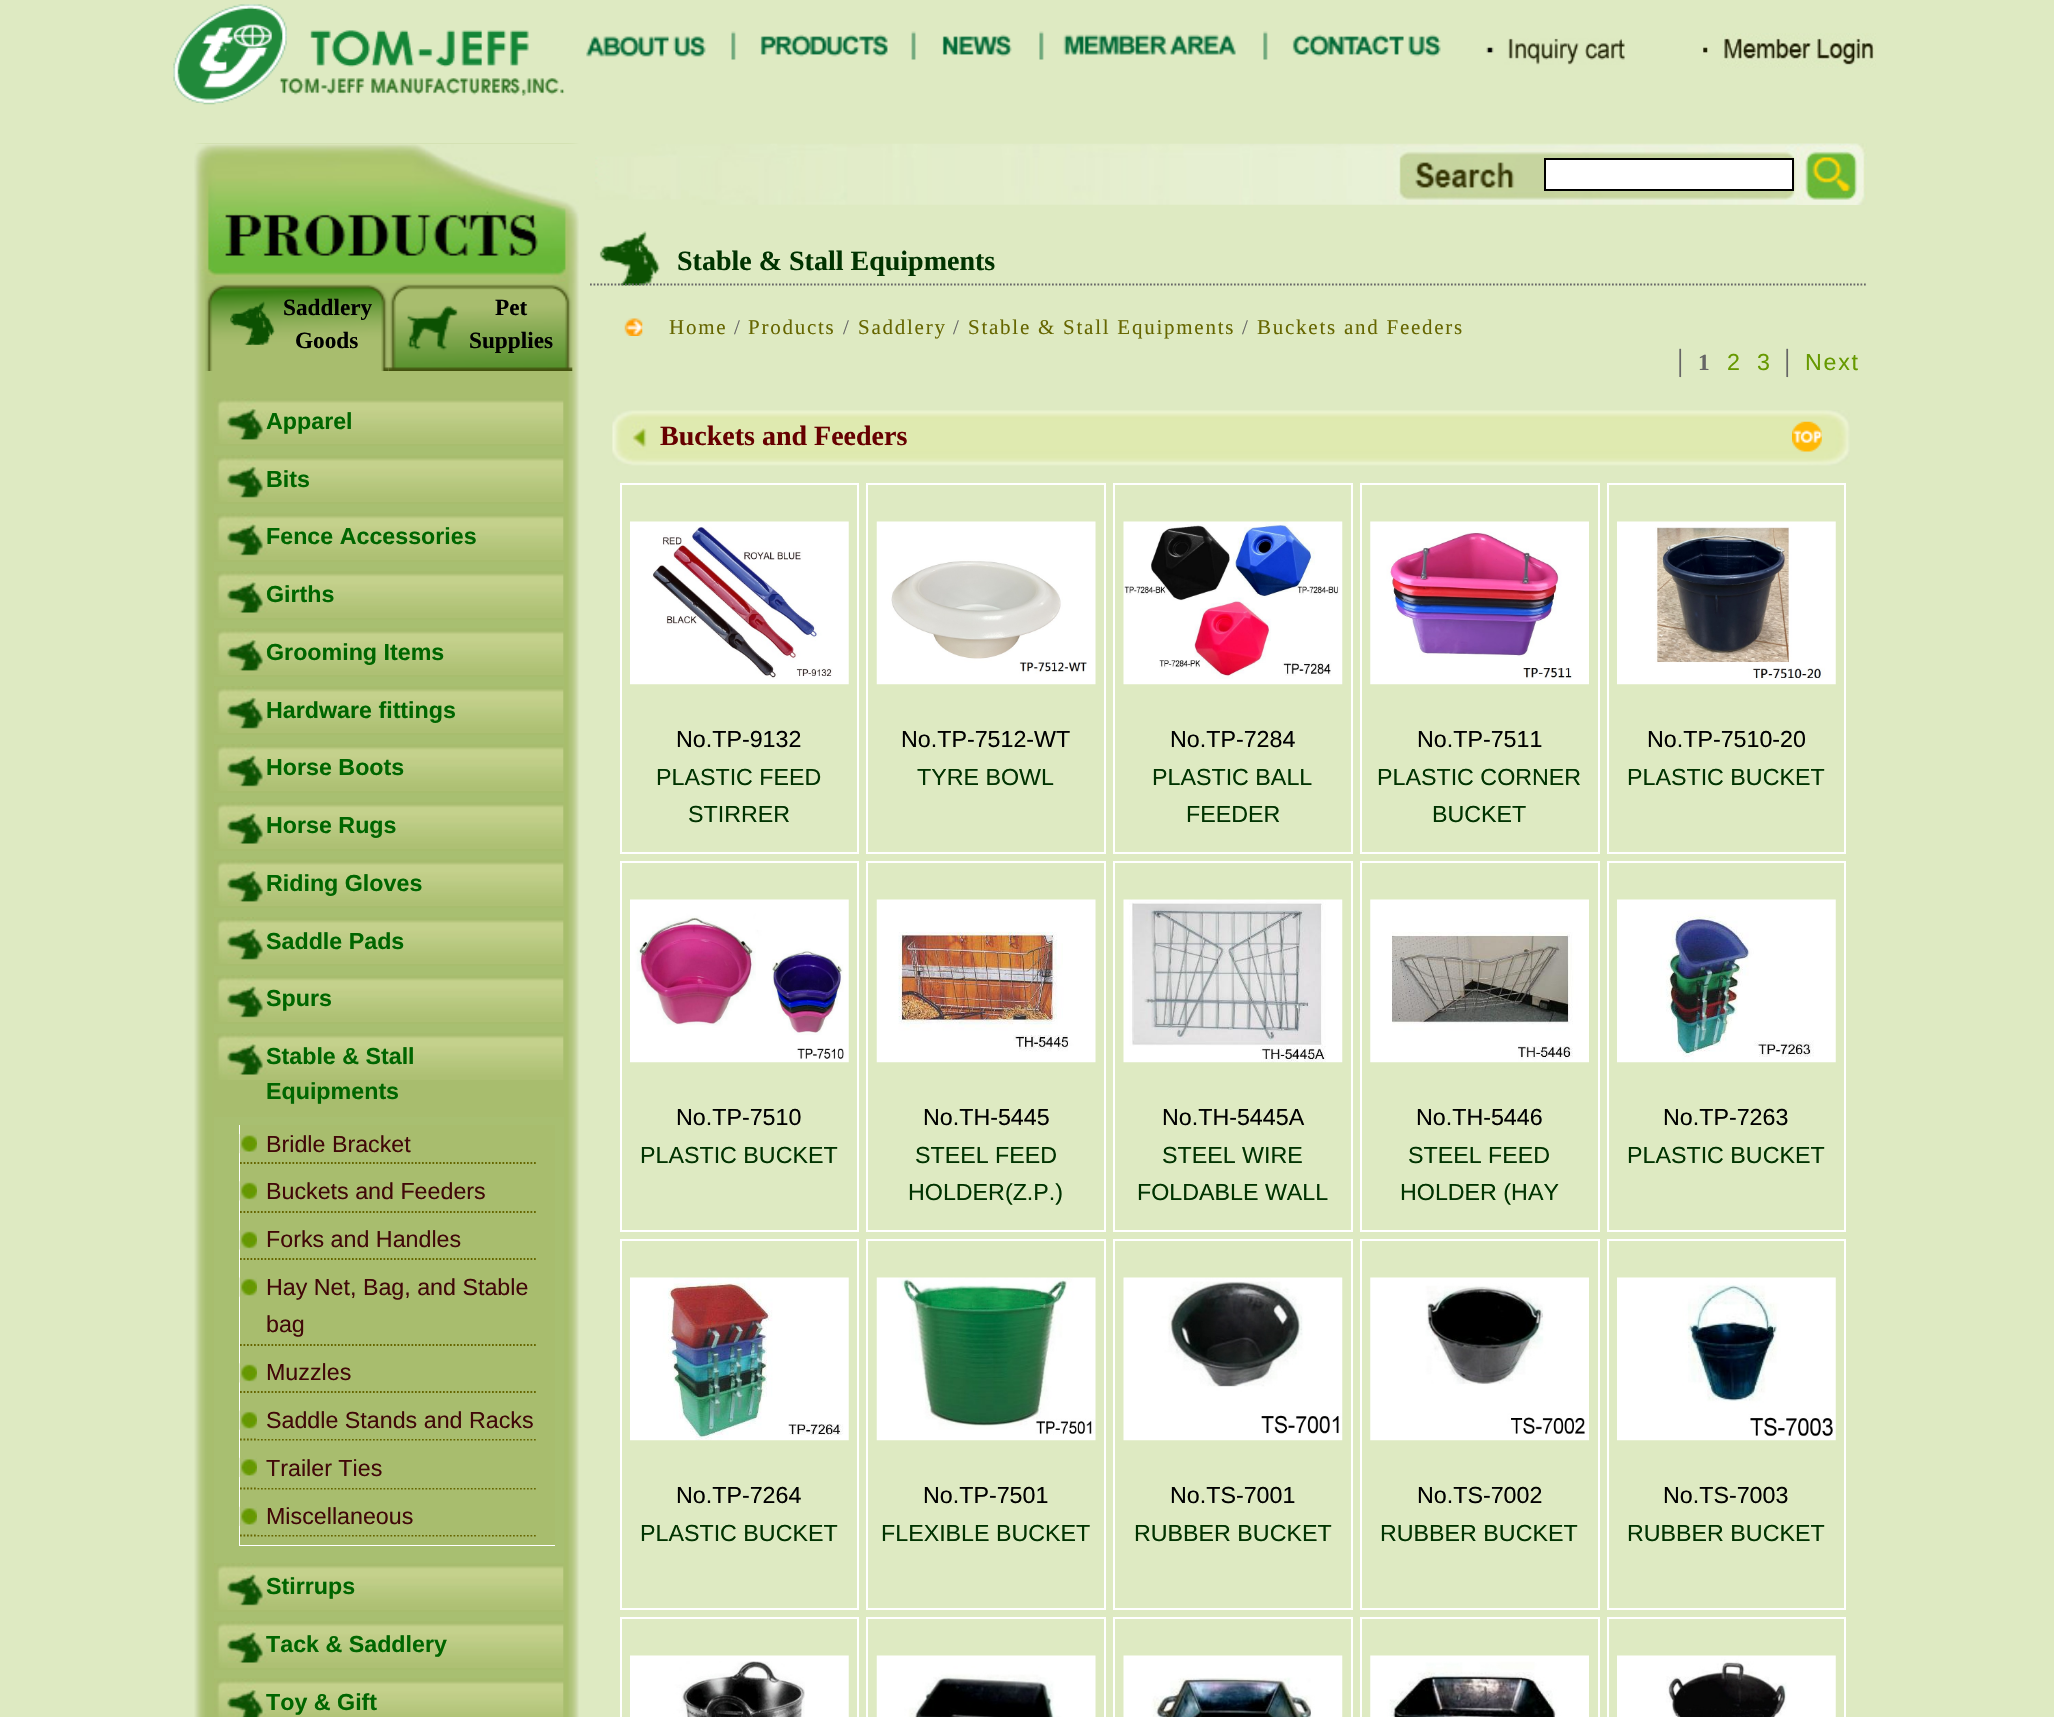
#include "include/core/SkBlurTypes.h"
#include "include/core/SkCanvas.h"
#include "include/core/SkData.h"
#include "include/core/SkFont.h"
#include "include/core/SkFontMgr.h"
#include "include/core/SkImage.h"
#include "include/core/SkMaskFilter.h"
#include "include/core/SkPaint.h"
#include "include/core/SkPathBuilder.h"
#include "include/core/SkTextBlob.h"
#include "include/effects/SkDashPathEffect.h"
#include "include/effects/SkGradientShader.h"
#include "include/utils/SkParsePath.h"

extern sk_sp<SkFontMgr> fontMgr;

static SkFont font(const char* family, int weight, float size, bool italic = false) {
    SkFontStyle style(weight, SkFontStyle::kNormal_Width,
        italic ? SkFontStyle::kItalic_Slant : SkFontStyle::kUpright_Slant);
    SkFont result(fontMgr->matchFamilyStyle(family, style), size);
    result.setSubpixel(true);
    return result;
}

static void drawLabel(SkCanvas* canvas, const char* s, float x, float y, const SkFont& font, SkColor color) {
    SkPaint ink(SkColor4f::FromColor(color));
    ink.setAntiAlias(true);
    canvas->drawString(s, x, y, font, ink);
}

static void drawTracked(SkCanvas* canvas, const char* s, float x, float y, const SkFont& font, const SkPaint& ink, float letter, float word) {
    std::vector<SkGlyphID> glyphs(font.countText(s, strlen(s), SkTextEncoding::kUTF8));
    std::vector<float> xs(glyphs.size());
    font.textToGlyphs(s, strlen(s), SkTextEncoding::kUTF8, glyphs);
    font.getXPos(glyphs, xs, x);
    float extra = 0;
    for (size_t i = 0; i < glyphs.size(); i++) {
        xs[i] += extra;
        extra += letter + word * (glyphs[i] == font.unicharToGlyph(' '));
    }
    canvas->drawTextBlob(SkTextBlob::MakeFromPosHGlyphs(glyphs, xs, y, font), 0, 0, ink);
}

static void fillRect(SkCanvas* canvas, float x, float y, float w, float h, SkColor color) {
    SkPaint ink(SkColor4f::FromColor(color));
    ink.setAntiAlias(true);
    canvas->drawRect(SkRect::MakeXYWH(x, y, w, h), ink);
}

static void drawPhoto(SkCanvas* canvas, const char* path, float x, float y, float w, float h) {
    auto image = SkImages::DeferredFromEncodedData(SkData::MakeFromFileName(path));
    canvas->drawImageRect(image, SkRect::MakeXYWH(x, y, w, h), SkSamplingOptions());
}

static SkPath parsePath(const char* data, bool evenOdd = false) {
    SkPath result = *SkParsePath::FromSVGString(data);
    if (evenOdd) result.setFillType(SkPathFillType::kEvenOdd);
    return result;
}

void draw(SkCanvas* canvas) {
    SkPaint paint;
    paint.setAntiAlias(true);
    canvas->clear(0xFFDEEAC2);
    drawPhoto(canvas, "assets/img1.png", 173, 4, 392, 101);
    drawPhoto(canvas, "assets/img2.png", 586, 36, 120, 21);
    drawPhoto(canvas, "assets/img3.png", 731, 31, 5, 29);
    drawPhoto(canvas, "assets/img4.png", 760, 34, 128, 23);
    drawPhoto(canvas, "assets/img5.png", 911, 31, 5, 29);
    drawPhoto(canvas, "assets/img6.png", 942, 34, 70, 23);
    drawPhoto(canvas, "assets/img7.png", 1039, 31, 5, 29);
    drawPhoto(canvas, "assets/img8.png", 1063, 34, 173, 21);
    drawPhoto(canvas, "assets/img7.png", 1263, 31, 5, 29);
    drawPhoto(canvas, "assets/img9.png", 1292, 34, 149, 23);
    drawPhoto(canvas, "assets/img10.png", 1486, 38, 139, 27);
    drawPhoto(canvas, "assets/img11.png", 1702, 33, 174, 35);
    drawPhoto(canvas, "assets/img12.png", 194, 143, 385, 1574);
    drawPhoto(canvas, "assets/img13.png", 194, 143, 385, 140);
    drawPhoto(canvas, "assets/img14.png", 205, 284, 184, 87);
    drawPhoto(canvas, "assets/img15.png", 230, 301, 45, 44);
    SkFont font1 = font("Liberation Serif", 700, 23.25f);
    drawLabel(canvas, "Saddlery", 283, 315, font1, 0xFF000000);
    drawLabel(canvas, "Goods", 295, 348, font1, 0xFF000000);
    drawPhoto(canvas, "assets/img16.png", 388, 284, 185, 87);
    drawPhoto(canvas, "assets/img17.png", 407, 305, 51, 46);
    drawLabel(canvas, "Pet", 495, 315, font1, 0xFF000000);
    drawLabel(canvas, "Supplies", 469, 348, font1, 0xFF000000);
    fillRect(canvas, 214, 446, 350, 1232, 0xFFA8BF71);
    drawPhoto(canvas, "assets/img18.png", 214, 398, 350, 46);
    SkFont font2 = font("Liberation Sans", 700, 23.25f);
    drawLabel(canvas, "Apparel", 266, 429, font2, 0xFF006600);
    fillRect(canvas, 214, 455, 350, 49, 0xFFA8BD6E);
    drawPhoto(canvas, "assets/img19.png", 214, 455, 350, 47);
    drawLabel(canvas, "Bits", 266, 487, font2, 0xFF006600);
    fillRect(canvas, 214, 513, 350, 49, 0xFFA8BD6E);
    drawPhoto(canvas, "assets/img20.png", 214, 513, 350, 47);
    drawLabel(canvas, "Fence Accessories", 266, 544, font2, 0xFF006600);
    fillRect(canvas, 214, 571, 350, 49, 0xFFA8BD6E);
    drawPhoto(canvas, "assets/img21.png", 214, 571, 350, 47);
    drawLabel(canvas, "Girths", 266, 602, font2, 0xFF006600);
    fillRect(canvas, 214, 628, 350, 49, 0xFFA8BD6E);
    drawPhoto(canvas, "assets/img18.png", 214, 629, 350, 46);
    drawLabel(canvas, "Grooming Items", 266, 660, font2, 0xFF006600);
    fillRect(canvas, 214, 686, 350, 49, 0xFFA8BD6E);
    drawPhoto(canvas, "assets/img19.png", 214, 686, 350, 47);
    drawLabel(canvas, "Hardware fittings", 266, 718, font2, 0xFF006600);
    fillRect(canvas, 214, 744, 350, 49, 0xFFA8BD6E);
    drawPhoto(canvas, "assets/img20.png", 214, 744, 350, 47);
    drawLabel(canvas, "Horse Boots", 266, 775, font2, 0xFF006600);
    fillRect(canvas, 214, 802, 350, 49, 0xFFA8BD6E);
    drawPhoto(canvas, "assets/img21.png", 214, 802, 350, 47);
    drawLabel(canvas, "Horse Rugs", 266, 833, font2, 0xFF006600);
    fillRect(canvas, 214, 859, 350, 49, 0xFFA8BD6E);
    drawPhoto(canvas, "assets/img18.png", 214, 860, 350, 46);
    drawLabel(canvas, "Riding Gloves", 266, 891, font2, 0xFF006600);
    fillRect(canvas, 214, 917, 350, 49, 0xFFA8BD6E);
    drawPhoto(canvas, "assets/img19.png", 214, 917, 350, 47);
    drawLabel(canvas, "Saddle Pads", 266, 949, font2, 0xFF006600);
    fillRect(canvas, 214, 975, 350, 49, 0xFFA8BD6E);
    drawPhoto(canvas, "assets/img20.png", 214, 975, 350, 47);
    drawLabel(canvas, "Spurs", 266, 1006, font2, 0xFF006600);
    fillRect(canvas, 214, 1033, 350, 84, 0xFFA8BD6E);
    drawPhoto(canvas, "assets/img21.png", 214, 1033, 350, 47);
    drawLabel(canvas, "Stable & Stall", 266, 1064, font2, 0xFF006600);
    drawLabel(canvas, "Equipments", 266, 1099, font2, 0xFF006600);
    fillRect(canvas, 239, 1125, 316, 421, 0xFFFFFFFF);
    fillRect(canvas, 240, 1125, 315, 420, 0xFFA8BD6E);
    drawPhoto(canvas, "assets/img22.png", 239, 1134, 18, 20);
    paint.setStroke(true);
    paint.setStrokeWidth(1.8f);
    paint.setColor(0xFF666600);
    paint.setPathEffect(SkDashPathEffect::Make({{1.75f, 1.75f}}, 0));
    canvas->drawPath(parsePath("M240 1163H537"), paint);
    paint.setPathEffect(nullptr);
    SkFont font3 = font("Liberation Sans", 400, 23.25f);
    drawLabel(canvas, "Bridle Bracket", 266, 1152, font3, 0xFF410808);
    drawPhoto(canvas, "assets/img23.png", 239, 1181, 18, 20);
    paint.setPathEffect(SkDashPathEffect::Make({{1.75f, 1.75f}}, 0));
    canvas->drawPath(parsePath("M240 1212H537"), paint);
    paint.setPathEffect(nullptr);
    drawLabel(canvas, "Buckets and Feeders", 266, 1199, font3, 0xFF410808);
    drawPhoto(canvas, "assets/img23.png", 239, 1230, 18, 20);
    paint.setPathEffect(SkDashPathEffect::Make({{1.75f, 1.75f}}, 0));
    canvas->drawPath(parsePath("M240 1259H537"), paint);
    paint.setPathEffect(nullptr);
    drawLabel(canvas, "Forks and Handles", 266, 1247, font3, 0xFF410808);
    drawPhoto(canvas, "assets/img24.png", 239, 1277, 18, 20);
    paint.setPathEffect(SkDashPathEffect::Make({{1.75f, 1.75f}}, 0));
    canvas->drawPath(parsePath("M240 1345H537"), paint);
    paint.setPathEffect(nullptr);
    drawLabel(canvas, "Hay Net, Bag, and Stable", 266, 1295, font3, 0xFF410808);
    drawLabel(canvas, "bag", 266, 1332, font3, 0xFF410808);
    drawPhoto(canvas, "assets/img23.png", 239, 1363, 18, 20);
    paint.setPathEffect(SkDashPathEffect::Make({{1.75f, 1.75f}}, 0));
    canvas->drawPath(parsePath("M240 1392H537"), paint);
    paint.setPathEffect(nullptr);
    drawLabel(canvas, "Muzzles", 266, 1380, font3, 0xFF410808);
    drawPhoto(canvas, "assets/img24.png", 239, 1410, 18, 20);
    paint.setPathEffect(SkDashPathEffect::Make({{1.75f, 1.75f}}, 0));
    canvas->drawPath(parsePath("M240 1439.5H537"), paint);
    paint.setPathEffect(nullptr);
    fillRect(canvas, 257, 1438, 279, 1, 0xFFA8BD6E);
    drawLabel(canvas, "Saddle Stands and Racks", 266, 1428, font3, 0xFF410808);
    drawPhoto(canvas, "assets/img25.png", 239, 1457, 18, 20);
    paint.setPathEffect(SkDashPathEffect::Make({{1.75f, 1.75f}}, 0));
    canvas->drawPath(parsePath("M240 1488.5H537"), paint);
    paint.setPathEffect(nullptr);
    fillRect(canvas, 257, 1487, 279, 1, 0xFFA8BD6E);
    drawLabel(canvas, "Trailer Ties", 266, 1476, font3, 0xFF410808);
    drawPhoto(canvas, "assets/img25.png", 239, 1506, 18, 20);
    paint.setPathEffect(SkDashPathEffect::Make({{1.75f, 1.75f}}, 0));
    canvas->drawPath(parsePath("M240 1535.5H537"), paint);
    paint.setPathEffect(nullptr);
    fillRect(canvas, 257, 1534, 279, 1, 0xFFA8BD6E);
    drawLabel(canvas, "Miscellaneous", 266, 1524, font3, 0xFF410808);
    fillRect(canvas, 214, 1563, 350, 49, 0xFFA8BD6E);
    drawPhoto(canvas, "assets/img20.png", 214, 1563, 350, 47);
    drawLabel(canvas, "Stirrups", 266, 1594, font2, 0xFF006600);
    fillRect(canvas, 214, 1621, 350, 49, 0xFFA8BD6E);
    drawPhoto(canvas, "assets/img21.png", 214, 1621, 350, 47);
    drawLabel(canvas, "Tack & Saddlery", 266, 1652, font2, 0xFF006600);
    drawPhoto(canvas, "assets/img26.png", 214, 1679, 350, 38);
    drawLabel(canvas, "Toy & Gift", 266, 1710, font2, 0xFF006600);
    drawPhoto(canvas, "assets/img27.png", 595, 143, 1272, 62);
    paint.setStroke(false);
    paint.setColor(0xFFFFFFFF);
    canvas->drawRect(SkRect::MakeXYWH(1545, 159, 248, 31), paint);
    paint.setStroke(true);
    paint.setStrokeWidth(2);
    paint.setColor(0xFF000000);
    canvas->drawRect(SkRect::MakeXYWH(1545, 159, 248, 31), paint);
    drawPhoto(canvas, "assets/img28.png", 1797, 143, 70, 62);
    drawPhoto(canvas, "assets/img29.png", 599, 231, 61, 55);
    paint.setStrokeWidth(1.8f);
    paint.setColor(0xFF666666);
    paint.setPathEffect(SkDashPathEffect::Make({{1.75f, 1.75f}}, 0));
    canvas->drawPath(parsePath("M590 284.5H1867"), paint);
    paint.setPathEffect(nullptr);
    SkFont font4 = font("Liberation Serif", 700, 28);
    drawLabel(canvas, "Stable & Stall Equipments", 677, 270, font4, 0xFF003300);
    drawPhoto(canvas, "assets/img30.png", 624, 318, 19, 18);
    SkFont font5 = font("Liberation Serif", 400, 21);
    paint.setStroke(false);
    paint.setColor(0xFF666600);
    drawTracked(canvas, "Home", 669, 334, font5, paint, 1.75f, 0);
    paint.setColor(0xFF666666);
    drawTracked(canvas, "/", 734, 334, font5, paint, 1.75f, 0);
    paint.setColor(0xFF666600);
    drawTracked(canvas, "Products", 748, 334, font5, paint, 1.75f, 0);
    paint.setColor(0xFF666666);
    drawTracked(canvas, "/", 843, 334, font5, paint, 1.75f, 0);
    paint.setColor(0xFF666600);
    drawTracked(canvas, "Saddlery", 858, 334, font5, paint, 1.75f, 0);
    paint.setColor(0xFF666666);
    drawTracked(canvas, "/", 953, 334, font5, paint, 1.75f, 0);
    paint.setColor(0xFF666600);
    drawTracked(canvas, "Stable & Stall Equipments", 968, 334, font5, paint, 1.75f, 0);
    paint.setColor(0xFF666666);
    drawTracked(canvas, "/", 1242, 334, font5, paint, 1.75f, 0);
    paint.setColor(0xFF666600);
    drawTracked(canvas, "Buckets and Feeders", 1257, 334, font5, paint, 1.75f, 0);
    SkFont font6 = font("Liberation Serif", 400, 23.25f);
    paint.setColor(0xFF666666);
    drawTracked(canvas, "│", 1672, 370, font6, paint, 1.75f, 0);
    drawTracked(canvas, "1", 1698, 370, font1, paint, 1.75f, 0);
    paint.setColor(0xFF669900);
    drawTracked(canvas, "2", 1727, 370, font3, paint, 1.75f, 0);
    drawTracked(canvas, "3", 1757, 370, font3, paint, 1.75f, 0);
    paint.setColor(0xFF666666);
    drawTracked(canvas, "│", 1779, 370, font6, paint, 1.75f, 0);
    paint.setColor(0xFF669900);
    drawTracked(canvas, "Next", 1805, 370, font3, paint, 1.75f, 0);
    drawPhoto(canvas, "assets/img31.png", 612, 410, 1238, 56);
    drawLabel(canvas, "Buckets and Feeders", 660, 445, font4, 0xFF660000);
    drawPhoto(canvas, "assets/img32.png", 1792, 421, 30, 31);
    paint.setStroke(true);
    paint.setStrokeWidth(2);
    paint.setColor(0xFFFFFFFF);
    canvas->drawRect(SkRect::MakeXYWH(621, 484, 237, 369), paint);
    drawPhoto(canvas, "assets/img33.png", 630, 521, 219, 164);
    drawLabel(canvas, "No.TP-9132", 676, 747, font3, 0xFF000000);
    drawLabel(canvas, "PLASTIC FEED", 656, 785, font3, 0xFF003300);
    drawLabel(canvas, "STIRRER", 688, 822, font3, 0xFF003300);
    canvas->drawRect(SkRect::MakeXYWH(867, 484, 238, 369), paint);
    drawPhoto(canvas, "assets/img34.png", 876, 521, 220, 164);
    drawLabel(canvas, "No.TP-7512-WT", 901, 747, font3, 0xFF000000);
    drawLabel(canvas, "TYRE BOWL", 917, 785, font3, 0xFF003300);
    canvas->drawRect(SkRect::MakeXYWH(1114, 484, 238, 369), paint);
    drawPhoto(canvas, "assets/img35.png", 1123, 521, 220, 164);
    drawLabel(canvas, "No.TP-7284", 1170, 747, font3, 0xFF000000);
    drawLabel(canvas, "PLASTIC BALL", 1152, 785, font3, 0xFF003300);
    drawLabel(canvas, "FEEDER", 1186, 822, font3, 0xFF003300);
    canvas->drawRect(SkRect::MakeXYWH(1361, 484, 238, 369), paint);
    drawPhoto(canvas, "assets/img36.png", 1370, 521, 219, 164);
    drawLabel(canvas, "No.TP-7511", 1417, 747, font3, 0xFF000000);
    drawLabel(canvas, "PLASTIC CORNER", 1377, 785, font3, 0xFF003300);
    drawLabel(canvas, "BUCKET", 1432, 822, font3, 0xFF003300);
    canvas->drawRect(SkRect::MakeXYWH(1608, 484, 237, 369), paint);
    drawPhoto(canvas, "assets/img37.png", 1617, 521, 219, 164);
    drawLabel(canvas, "No.TP-7510-20", 1647, 747, font3, 0xFF000000);
    drawLabel(canvas, "PLASTIC BUCKET", 1627, 785, font3, 0xFF003300);
    canvas->drawRect(SkRect::MakeXYWH(621, 862, 237, 369), paint);
    drawPhoto(canvas, "assets/img38.png", 630, 899, 219, 164);
    drawLabel(canvas, "No.TP-7510", 676, 1125, font3, 0xFF000000);
    drawLabel(canvas, "PLASTIC BUCKET", 640, 1163, font3, 0xFF003300);
    canvas->drawRect(SkRect::MakeXYWH(867, 862, 238, 369), paint);
    drawPhoto(canvas, "assets/img39.png", 876, 899, 220, 164);
    drawLabel(canvas, "No.TH-5445", 923, 1125, font3, 0xFF000000);
    drawLabel(canvas, "STEEL FEED", 915, 1163, font3, 0xFF003300);
    drawLabel(canvas, "HOLDER(Z.P.)", 908, 1200, font3, 0xFF003300);
    canvas->drawRect(SkRect::MakeXYWH(1114, 862, 238, 369), paint);
    drawPhoto(canvas, "assets/img40.png", 1123, 899, 220, 164);
    drawLabel(canvas, "No.TH-5445A", 1162, 1125, font3, 0xFF000000);
    drawLabel(canvas, "STEEL WIRE", 1162, 1163, font3, 0xFF003300);
    drawLabel(canvas, "FOLDABLE WALL", 1137, 1200, font3, 0xFF003300);
    canvas->drawRect(SkRect::MakeXYWH(1361, 862, 238, 369), paint);
    drawPhoto(canvas, "assets/img41.png", 1370, 899, 219, 164);
    drawLabel(canvas, "No.TH-5446", 1416, 1125, font3, 0xFF000000);
    drawLabel(canvas, "STEEL FEED", 1408, 1163, font3, 0xFF003300);
    drawLabel(canvas, "HOLDER (HAY", 1400, 1200, font3, 0xFF003300);
    canvas->drawRect(SkRect::MakeXYWH(1608, 862, 237, 369), paint);
    drawPhoto(canvas, "assets/img42.png", 1617, 899, 219, 164);
    drawLabel(canvas, "No.TP-7263", 1663, 1125, font3, 0xFF000000);
    drawLabel(canvas, "PLASTIC BUCKET", 1627, 1163, font3, 0xFF003300);
    canvas->drawRect(SkRect::MakeXYWH(621, 1240, 237, 369), paint);
    drawPhoto(canvas, "assets/img43.png", 630, 1277, 219, 164);
    drawLabel(canvas, "No.TP-7264", 676, 1503, font3, 0xFF000000);
    drawLabel(canvas, "PLASTIC BUCKET", 640, 1541, font3, 0xFF003300);
    canvas->drawRect(SkRect::MakeXYWH(867, 1240, 238, 369), paint);
    drawPhoto(canvas, "assets/img44.png", 876, 1277, 220, 164);
    drawLabel(canvas, "No.TP-7501", 923, 1503, font3, 0xFF000000);
    drawLabel(canvas, "FLEXIBLE BUCKET", 881, 1541, font3, 0xFF003300);
    canvas->drawRect(SkRect::MakeXYWH(1114, 1240, 238, 369), paint);
    drawPhoto(canvas, "assets/img45.png", 1123, 1277, 220, 164);
    drawLabel(canvas, "No.TS-7001", 1170, 1503, font3, 0xFF000000);
    drawLabel(canvas, "RUBBER BUCKET", 1134, 1541, font3, 0xFF003300);
    canvas->drawRect(SkRect::MakeXYWH(1361, 1240, 238, 369), paint);
    drawPhoto(canvas, "assets/img46.png", 1370, 1277, 219, 164);
    drawLabel(canvas, "No.TS-7002", 1417, 1503, font3, 0xFF000000);
    drawLabel(canvas, "RUBBER BUCKET", 1380, 1541, font3, 0xFF003300);
    canvas->drawRect(SkRect::MakeXYWH(1608, 1240, 237, 369), paint);
    drawPhoto(canvas, "assets/img47.png", 1617, 1277, 219, 164);
    drawLabel(canvas, "No.TS-7003", 1663, 1503, font3, 0xFF000000);
    drawLabel(canvas, "RUBBER BUCKET", 1627, 1541, font3, 0xFF003300);
    canvas->drawRect(SkRect::MakeXYWH(621, 1618, 237, 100), paint);
    drawPhoto(canvas, "assets/img48.png", 630, 1655, 219, 62);
    canvas->drawRect(SkRect::MakeXYWH(867, 1618, 238, 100), paint);
    drawPhoto(canvas, "assets/img49.png", 876, 1655, 220, 62);
    canvas->drawRect(SkRect::MakeXYWH(1114, 1618, 238, 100), paint);
    drawPhoto(canvas, "assets/img50.png", 1123, 1655, 220, 62);
    canvas->drawRect(SkRect::MakeXYWH(1361, 1618, 238, 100), paint);
    drawPhoto(canvas, "assets/img51.png", 1370, 1655, 219, 62);
    canvas->drawRect(SkRect::MakeXYWH(1608, 1618, 237, 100), paint);
    drawPhoto(canvas, "assets/img52.png", 1617, 1655, 219, 62);
}
